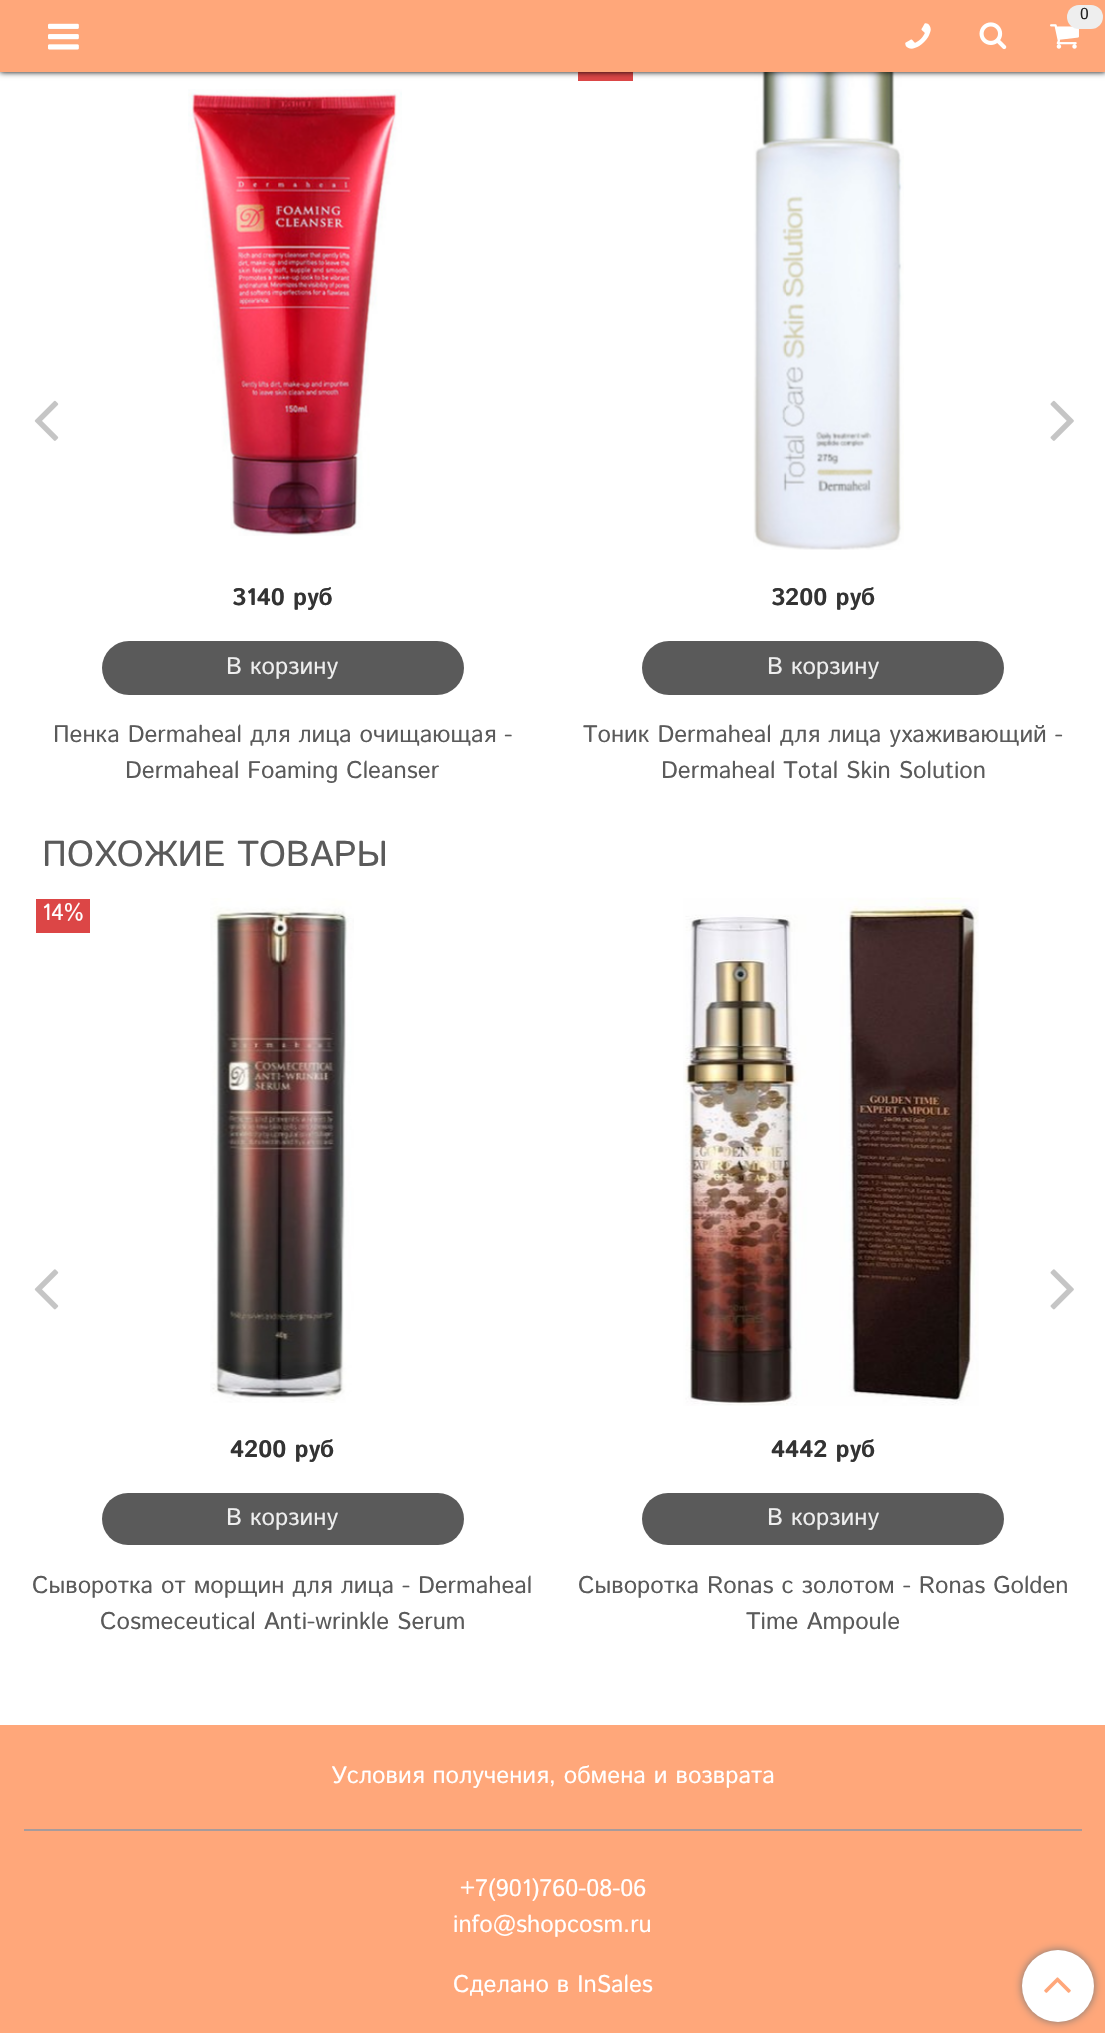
#include "include/core/SkBlurTypes.h"
#include "include/core/SkCanvas.h"
#include "include/core/SkData.h"
#include "include/core/SkFont.h"
#include "include/core/SkFontMgr.h"
#include "include/core/SkImage.h"
#include "include/core/SkMaskFilter.h"
#include "include/core/SkPaint.h"
#include "include/core/SkPathBuilder.h"
#include "include/core/SkTextBlob.h"
#include "include/effects/SkDashPathEffect.h"
#include "include/effects/SkGradientShader.h"
#include "include/utils/SkParsePath.h"

extern sk_sp<SkFontMgr> fontMgr;

static SkFont font(const char* family, int weight, float size, bool italic = false) {
    SkFontStyle style(weight, SkFontStyle::kNormal_Width,
        italic ? SkFontStyle::kItalic_Slant : SkFontStyle::kUpright_Slant);
    SkFont result(fontMgr->matchFamilyStyle(family, style), size);
    result.setSubpixel(true);
    return result;
}

static void drawLabel(SkCanvas* canvas, const char* s, float x, float y, const SkFont& font, SkColor color) {
    SkPaint ink(SkColor4f::FromColor(color));
    ink.setAntiAlias(true);
    canvas->drawString(s, x, y, font, ink);
}

static void fillRect(SkCanvas* canvas, float x, float y, float w, float h, SkColor color) {
    SkPaint ink(SkColor4f::FromColor(color));
    ink.setAntiAlias(true);
    canvas->drawRect(SkRect::MakeXYWH(x, y, w, h), ink);
}

static void fillRRect(SkCanvas* canvas, float x, float y, float w, float h, float radius, SkColor color) {
    SkPaint ink(SkColor4f::FromColor(color));
    ink.setAntiAlias(true);
    canvas->drawRoundRect(SkRect::MakeXYWH(x, y, w, h), radius, radius, ink);
}

static void drawPhoto(SkCanvas* canvas, const char* path, float x, float y, float w, float h) {
    auto image = SkImages::DeferredFromEncodedData(SkData::MakeFromFileName(path));
    canvas->drawImageRect(image, SkRect::MakeXYWH(x, y, w, h), SkSamplingOptions());
}

void draw(SkCanvas* canvas) {
    SkPaint paint;
    paint.setAntiAlias(true);
    canvas->clear(0xFFFFFFFF);
    fillRect(canvas, 578, 72, 55, 9, 0xFFDC4646);
    drawPhoto(canvas, "assets/img8.png", 753, 72, 151, 478);
    paint.setColor(0xFF000000);
    paint.setMaskFilter(SkMaskFilter::MakeBlur(kNormal_SkBlurStyle, 3));
    canvas->drawRect(SkRect::MakeXYWH(0, 0, 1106, 72), paint);
    paint.setMaskFilter(nullptr);
    fillRect(canvas, 0, 0, 1105, 72, 0xFFFFA77A);
    drawPhoto(canvas, "assets/img1.png", 1050, 24, 29, 25);
    fillRRect(canvas, 1067, 5, 36, 24, 12, 0xFFEEEEEE);
    SkFont font1 = font("Istok Web", 400, 16);
    drawLabel(canvas, "0", 1080, 19, font1, 0xFF222222);
    drawPhoto(canvas, "assets/img2.png", 905, 23, 26, 26);
    drawPhoto(canvas, "assets/img3.png", 979, 22, 28, 28);
    drawPhoto(canvas, "assets/img4.png", 48, 23, 31, 27);
    drawPhoto(canvas, "assets/img5.png", 34, 400, 25, 41);
    drawPhoto(canvas, "assets/img6.png", 1050, 400, 24, 41);
    drawPhoto(canvas, "assets/img7.png", 188, 89, 214, 447);
    SkFont font2 = font("Istok Web", 700, 24);
    drawLabel(canvas, "3140 руб", 232, 605, font2, 0xFF333333);
    fillRRect(canvas, 102, 641, 362, 54, 27, 0xFF5A5A5A);
    SkFont font3 = font("Istok Web", 400, 24);
    drawLabel(canvas, "В корзину", 226, 674, font3, 0xFFEEEEEE);
    drawLabel(canvas, "Пенка Dermaheal для лица очищающая -", 53, 742, font3, 0xFF5A5A5A);
    drawLabel(canvas, "Dermaheal Foaming Cleanser", 125, 778, font3, 0xFF5A5A5A);
    drawLabel(canvas, "3200 руб", 771, 605, font2, 0xFF333333);
    fillRRect(canvas, 642, 641, 362, 54, 27, 0xFF5A5A5A);
    drawLabel(canvas, "В корзину", 767, 674, font3, 0xFFEEEEEE);
    drawLabel(canvas, "Тоник Dermaheal для лица ухаживающий -", 583, 742, font3, 0xFF5A5A5A);
    drawLabel(canvas, "Dermaheal Total Skin Solution", 661, 778, font3, 0xFF5A5A5A);
    SkFont font4 = font("Istok Web", 400, 36);
    drawLabel(canvas, "ПОХОЖИЕ ТОВАРЫ", 42, 866, font4, 0xFF5A5A5A);
    drawPhoto(canvas, "assets/img9.png", 34, 1269, 25, 41);
    drawPhoto(canvas, "assets/img10.png", 1050, 1269, 24, 41);
    fillRect(canvas, 36, 899, 54, 34, 0xFFDC4646);
    SkFont font5 = font("Istok Web", 400, 23);
    drawLabel(canvas, "14%", 42, 920, font5, 0xFFFFFFFF);
    drawPhoto(canvas, "assets/img11.png", 210, 898, 144, 505);
    drawLabel(canvas, "4200 руб", 230, 1457, font2, 0xFF333333);
    fillRRect(canvas, 102, 1493, 362, 52, 26, 0xFF5A5A5A);
    drawLabel(canvas, "В корзину", 226, 1525, font3, 0xFFEEEEEE);
    drawLabel(canvas, "Сыворотка от морщин для лица - Dermaheal", 32, 1593, font3, 0xFF5A5A5A);
    drawLabel(canvas, "Cosmeceutical Anti-wrinkle Serum", 100, 1629, font3, 0xFF5A5A5A);
    drawPhoto(canvas, "assets/img12.png", 683, 897, 296, 509);
    drawLabel(canvas, "4442 руб", 771, 1457, font2, 0xFF333333);
    fillRRect(canvas, 642, 1493, 362, 52, 26, 0xFF5A5A5A);
    drawLabel(canvas, "В корзину", 767, 1525, font3, 0xFFEEEEEE);
    drawLabel(canvas, "Сыворотка Ronas с золотом - Ronas Golden", 578, 1593, font3, 0xFF5A5A5A);
    drawLabel(canvas, "Time Ampoule", 746, 1629, font3, 0xFF5A5A5A);
    fillRect(canvas, 0, 1725, 1105, 308, 0xFFFFA77A);
    fillRect(canvas, 24, 1829, 1058, 2, 0xFFA89B9B);
    drawLabel(canvas, "Условия получения, обмена и возврата", 331, 1783, font3, 0xFFFFFFFF);
    drawLabel(canvas, "+7(901)760-08-06", 460, 1896, font3, 0xFFFFFFFF);
    drawLabel(canvas, "info@shopcosm.ru", 453, 1932, font3, 0xFFFFFFFF);
    drawLabel(canvas, "Сделано в InSales", 453, 1992, font3, 0xFFFFFFFF);
    paint.setColor(0xFF777777);
    paint.setMaskFilter(SkMaskFilter::MakeBlur(kNormal_SkBlurStyle, 4));
    canvas->drawRoundRect(SkRect::MakeXYWH(1022, 1950, 72, 72), 36, 36, paint);
    paint.setMaskFilter(nullptr);
    paint.setColor(0xFFFFFFFF);
    canvas->drawCircle(1058, 1986, 36, paint);
    drawPhoto(canvas, "assets/img13.png", 1044, 1977, 27, 16);
}
